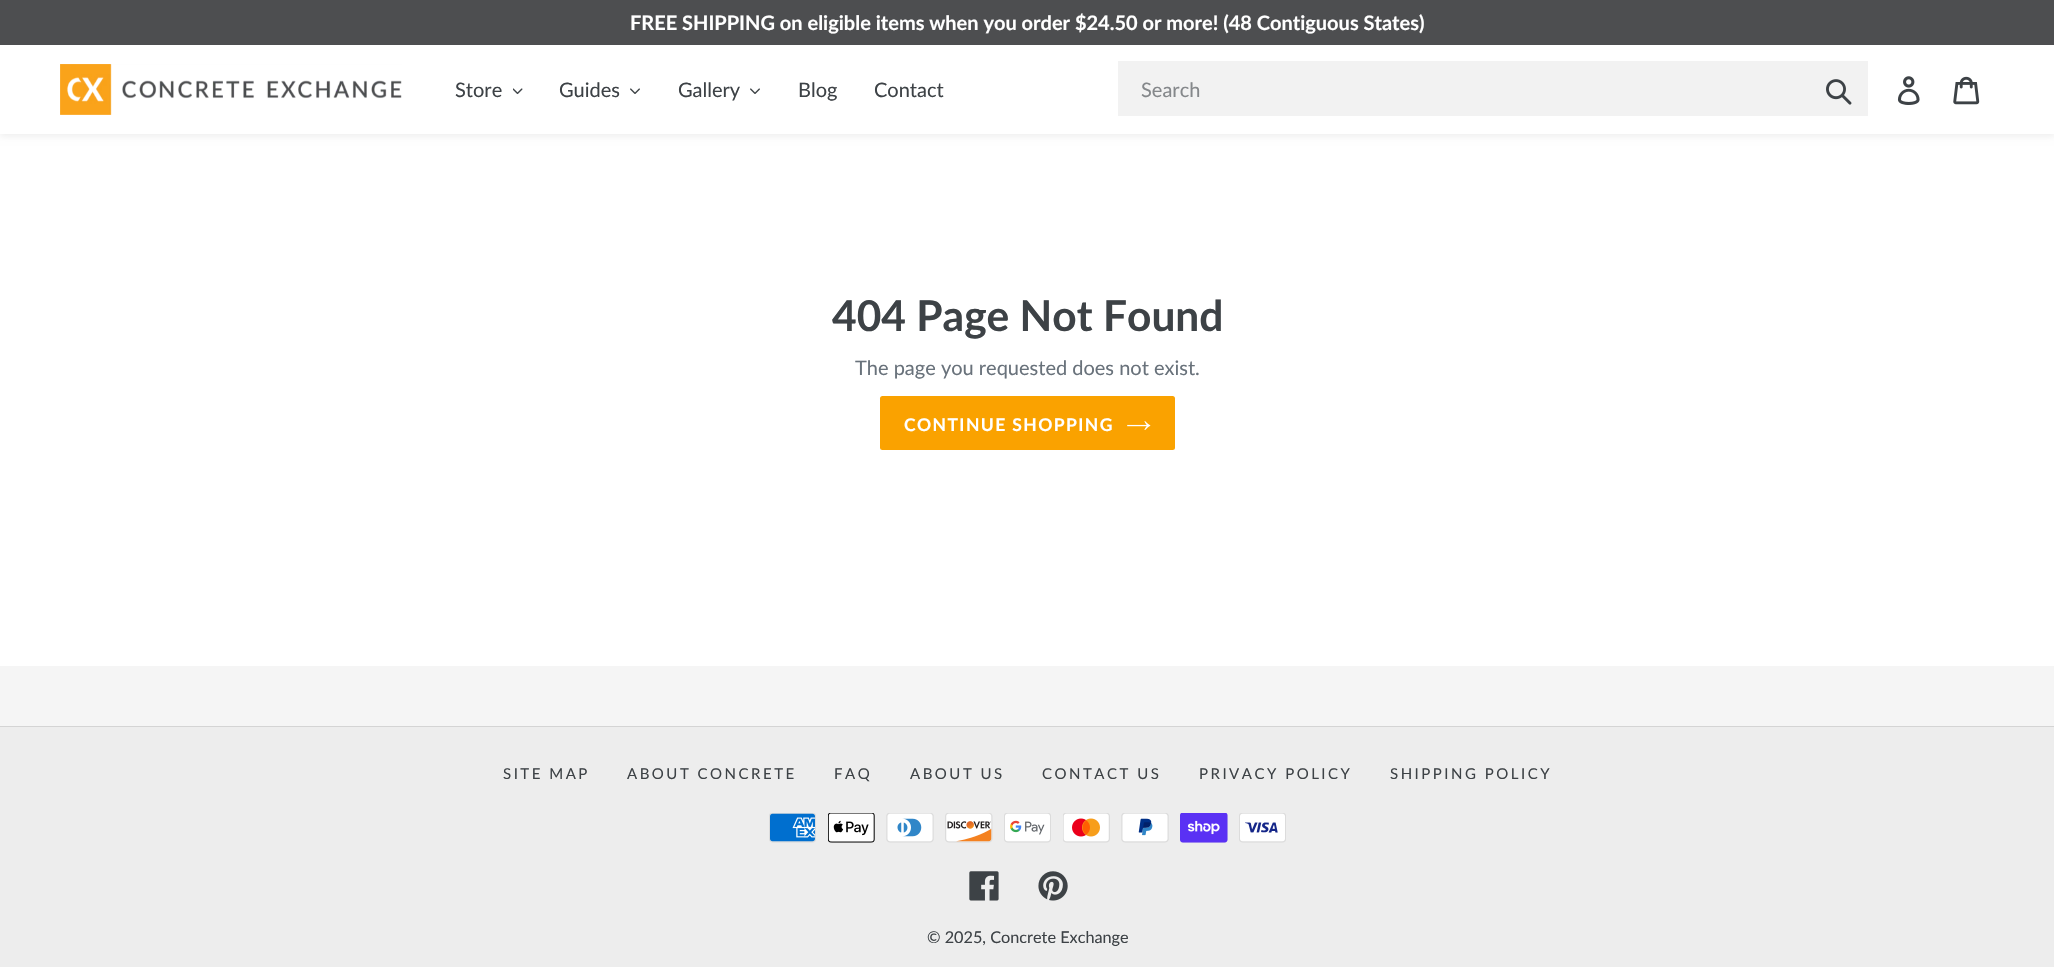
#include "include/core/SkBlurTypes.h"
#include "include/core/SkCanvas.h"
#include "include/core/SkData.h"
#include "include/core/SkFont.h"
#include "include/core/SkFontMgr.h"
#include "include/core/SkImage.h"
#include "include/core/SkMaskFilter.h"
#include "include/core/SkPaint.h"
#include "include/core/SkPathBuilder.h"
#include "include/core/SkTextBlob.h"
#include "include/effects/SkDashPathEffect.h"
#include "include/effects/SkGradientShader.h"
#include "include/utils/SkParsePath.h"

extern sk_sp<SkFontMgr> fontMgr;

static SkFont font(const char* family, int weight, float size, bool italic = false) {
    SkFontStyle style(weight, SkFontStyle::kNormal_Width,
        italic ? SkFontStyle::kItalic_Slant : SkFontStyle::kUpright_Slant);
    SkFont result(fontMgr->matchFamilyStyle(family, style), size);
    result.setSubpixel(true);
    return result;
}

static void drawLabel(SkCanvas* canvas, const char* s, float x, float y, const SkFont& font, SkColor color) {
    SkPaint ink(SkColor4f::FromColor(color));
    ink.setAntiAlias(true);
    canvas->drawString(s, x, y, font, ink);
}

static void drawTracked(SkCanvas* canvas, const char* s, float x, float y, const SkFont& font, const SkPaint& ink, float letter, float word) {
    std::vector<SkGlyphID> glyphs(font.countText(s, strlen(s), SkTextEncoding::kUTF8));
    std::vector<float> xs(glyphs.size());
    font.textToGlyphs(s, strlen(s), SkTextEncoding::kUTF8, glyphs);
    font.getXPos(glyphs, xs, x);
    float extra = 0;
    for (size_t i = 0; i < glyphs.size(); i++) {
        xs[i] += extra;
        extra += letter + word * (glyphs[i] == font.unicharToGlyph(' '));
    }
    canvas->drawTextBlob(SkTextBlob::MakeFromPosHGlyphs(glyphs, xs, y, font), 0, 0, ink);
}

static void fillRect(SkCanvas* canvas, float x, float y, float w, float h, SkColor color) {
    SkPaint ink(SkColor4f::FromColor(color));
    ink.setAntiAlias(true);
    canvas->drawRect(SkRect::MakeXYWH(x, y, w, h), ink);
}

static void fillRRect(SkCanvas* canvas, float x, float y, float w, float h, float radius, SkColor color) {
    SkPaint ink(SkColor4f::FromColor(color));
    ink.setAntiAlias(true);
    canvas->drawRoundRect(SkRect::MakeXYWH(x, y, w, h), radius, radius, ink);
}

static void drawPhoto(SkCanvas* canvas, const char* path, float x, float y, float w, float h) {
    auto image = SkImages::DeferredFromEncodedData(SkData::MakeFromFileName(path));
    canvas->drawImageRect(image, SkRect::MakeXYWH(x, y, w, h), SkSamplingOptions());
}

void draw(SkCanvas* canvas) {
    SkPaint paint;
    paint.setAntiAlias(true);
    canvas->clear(0xFFF5F5F5);
    fillRect(canvas, 0, 134, 2054, 532, 0xFFFFFFFF);
    paint.setColor(0x12000000);
    paint.setMaskFilter(SkMaskFilter::MakeBlur(kNormal_SkBlurStyle, 3.5f));
    canvas->drawRect(SkRect::MakeXYWH(0, 3, 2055, 133), paint);
    paint.setMaskFilter(nullptr);
    fillRect(canvas, 0, 45, 2054, 89, 0xFFFFFFFF);
    fillRect(canvas, 0, 0, 2054, 45, 0xFF4D4E50);
    SkFont font1 = font("Lato", 700, 20);
    drawLabel(canvas, "FREE SHIPPING on eligible items when you order $24.50 or more! (48 Contiguous States)", 630, 30, font1, 0xFFFFFFFF);
    drawPhoto(canvas, "assets/img1.png", 60, 64, 342, 51);
    SkFont font2 = font("Lato", 400, 20);
    drawLabel(canvas, "Store", 455, 97, font2, 0xFF3D4246);
    drawPhoto(canvas, "assets/img2.png", 513, 88, 10, 7);
    drawLabel(canvas, "Guides", 559, 97, font2, 0xFF3D4246);
    drawPhoto(canvas, "assets/img3.png", 630, 88, 10, 6);
    drawLabel(canvas, "Gallery", 678, 97, font2, 0xFF3D4246);
    drawPhoto(canvas, "assets/img3.png", 750, 88, 10, 6);
    drawLabel(canvas, "Blog", 798, 97, font2, 0xFF3D4246);
    drawLabel(canvas, "Contact", 874, 97, font2, 0xFF3D4246);
    fillRect(canvas, 1118, 61, 750, 55, 0xFFF2F2F2);
    drawLabel(canvas, "Search", 1141, 97, font2, 0xFF85888B);
    drawPhoto(canvas, "assets/img4.png", 1826, 79, 26, 26);
    drawPhoto(canvas, "assets/img5.png", 1897, 76, 23, 29);
    drawPhoto(canvas, "assets/img6.png", 1953, 76, 27, 29);
    SkFont font3 = font("Lato", 700, 42.5f);
    drawLabel(canvas, "404 Page Not Found", 832, 331, font3, 0xFF3D4246);
    drawLabel(canvas, "The page you requested does not exist.", 855, 375, font2, 0xFF69727B);
    fillRRect(canvas, 880, 396, 295, 54, 2.5f, 0xFFFAA200);
    SkFont font4 = font("Lato", 700, 17.5f);
    paint.setColor(0xFFFFFFFF);
    drawTracked(canvas, "CONTINUE SHOPPING", 904, 431, font4, paint, 1.4f, 0);
    drawPhoto(canvas, "assets/img7.png", 1127, 421, 24, 9);
    fillRect(canvas, 0, 727, 2054, 240, 0xFFEDEDED);
    fillRect(canvas, 0, 726, 2054, 1, 0xFFD4D4D4);
    SkFont font5 = font("Lato", 400, 15);
    paint.setColor(0xFF3D4246);
    drawTracked(canvas, "SITE MAP", 503, 779, font5, paint, 2.5f, 0);
    drawTracked(canvas, "ABOUT CONCRETE", 627, 779, font5, paint, 2.5f, 0);
    drawTracked(canvas, "FAQ", 834, 779, font5, paint, 2.5f, 0);
    drawTracked(canvas, "ABOUT US", 910, 779, font5, paint, 2.5f, 0);
    drawTracked(canvas, "CONTACT US", 1042, 779, font5, paint, 2.5f, 0);
    drawTracked(canvas, "PRIVACY POLICY", 1199, 779, font5, paint, 2.5f, 0);
    drawTracked(canvas, "SHIPPING POLICY", 1390, 779, font5, paint, 2.5f, 0);
    drawPhoto(canvas, "assets/img8.png", 769, 813, 47, 30);
    drawPhoto(canvas, "assets/img9.png", 828, 813, 47, 30);
    drawPhoto(canvas, "assets/img10.png", 886, 813, 48, 30);
    drawPhoto(canvas, "assets/img11.png", 945, 813, 48, 30);
    drawPhoto(canvas, "assets/img12.png", 1004, 813, 47, 30);
    drawPhoto(canvas, "assets/img13.png", 1063, 813, 47, 30);
    drawPhoto(canvas, "assets/img14.png", 1121, 813, 48, 30);
    drawPhoto(canvas, "assets/img15.png", 1180, 813, 48, 30);
    drawPhoto(canvas, "assets/img16.png", 1239, 813, 47, 30);
    drawPhoto(canvas, "assets/img17.png", 969, 871, 30, 30);
    drawPhoto(canvas, "assets/img18.png", 1038, 871, 30, 30);
    SkFont font6 = font("Lato", 400, 16.25f);
    drawLabel(canvas, "© 2025, Concrete Exchange", 927, 943, font6, 0xFF3D4246);
}
